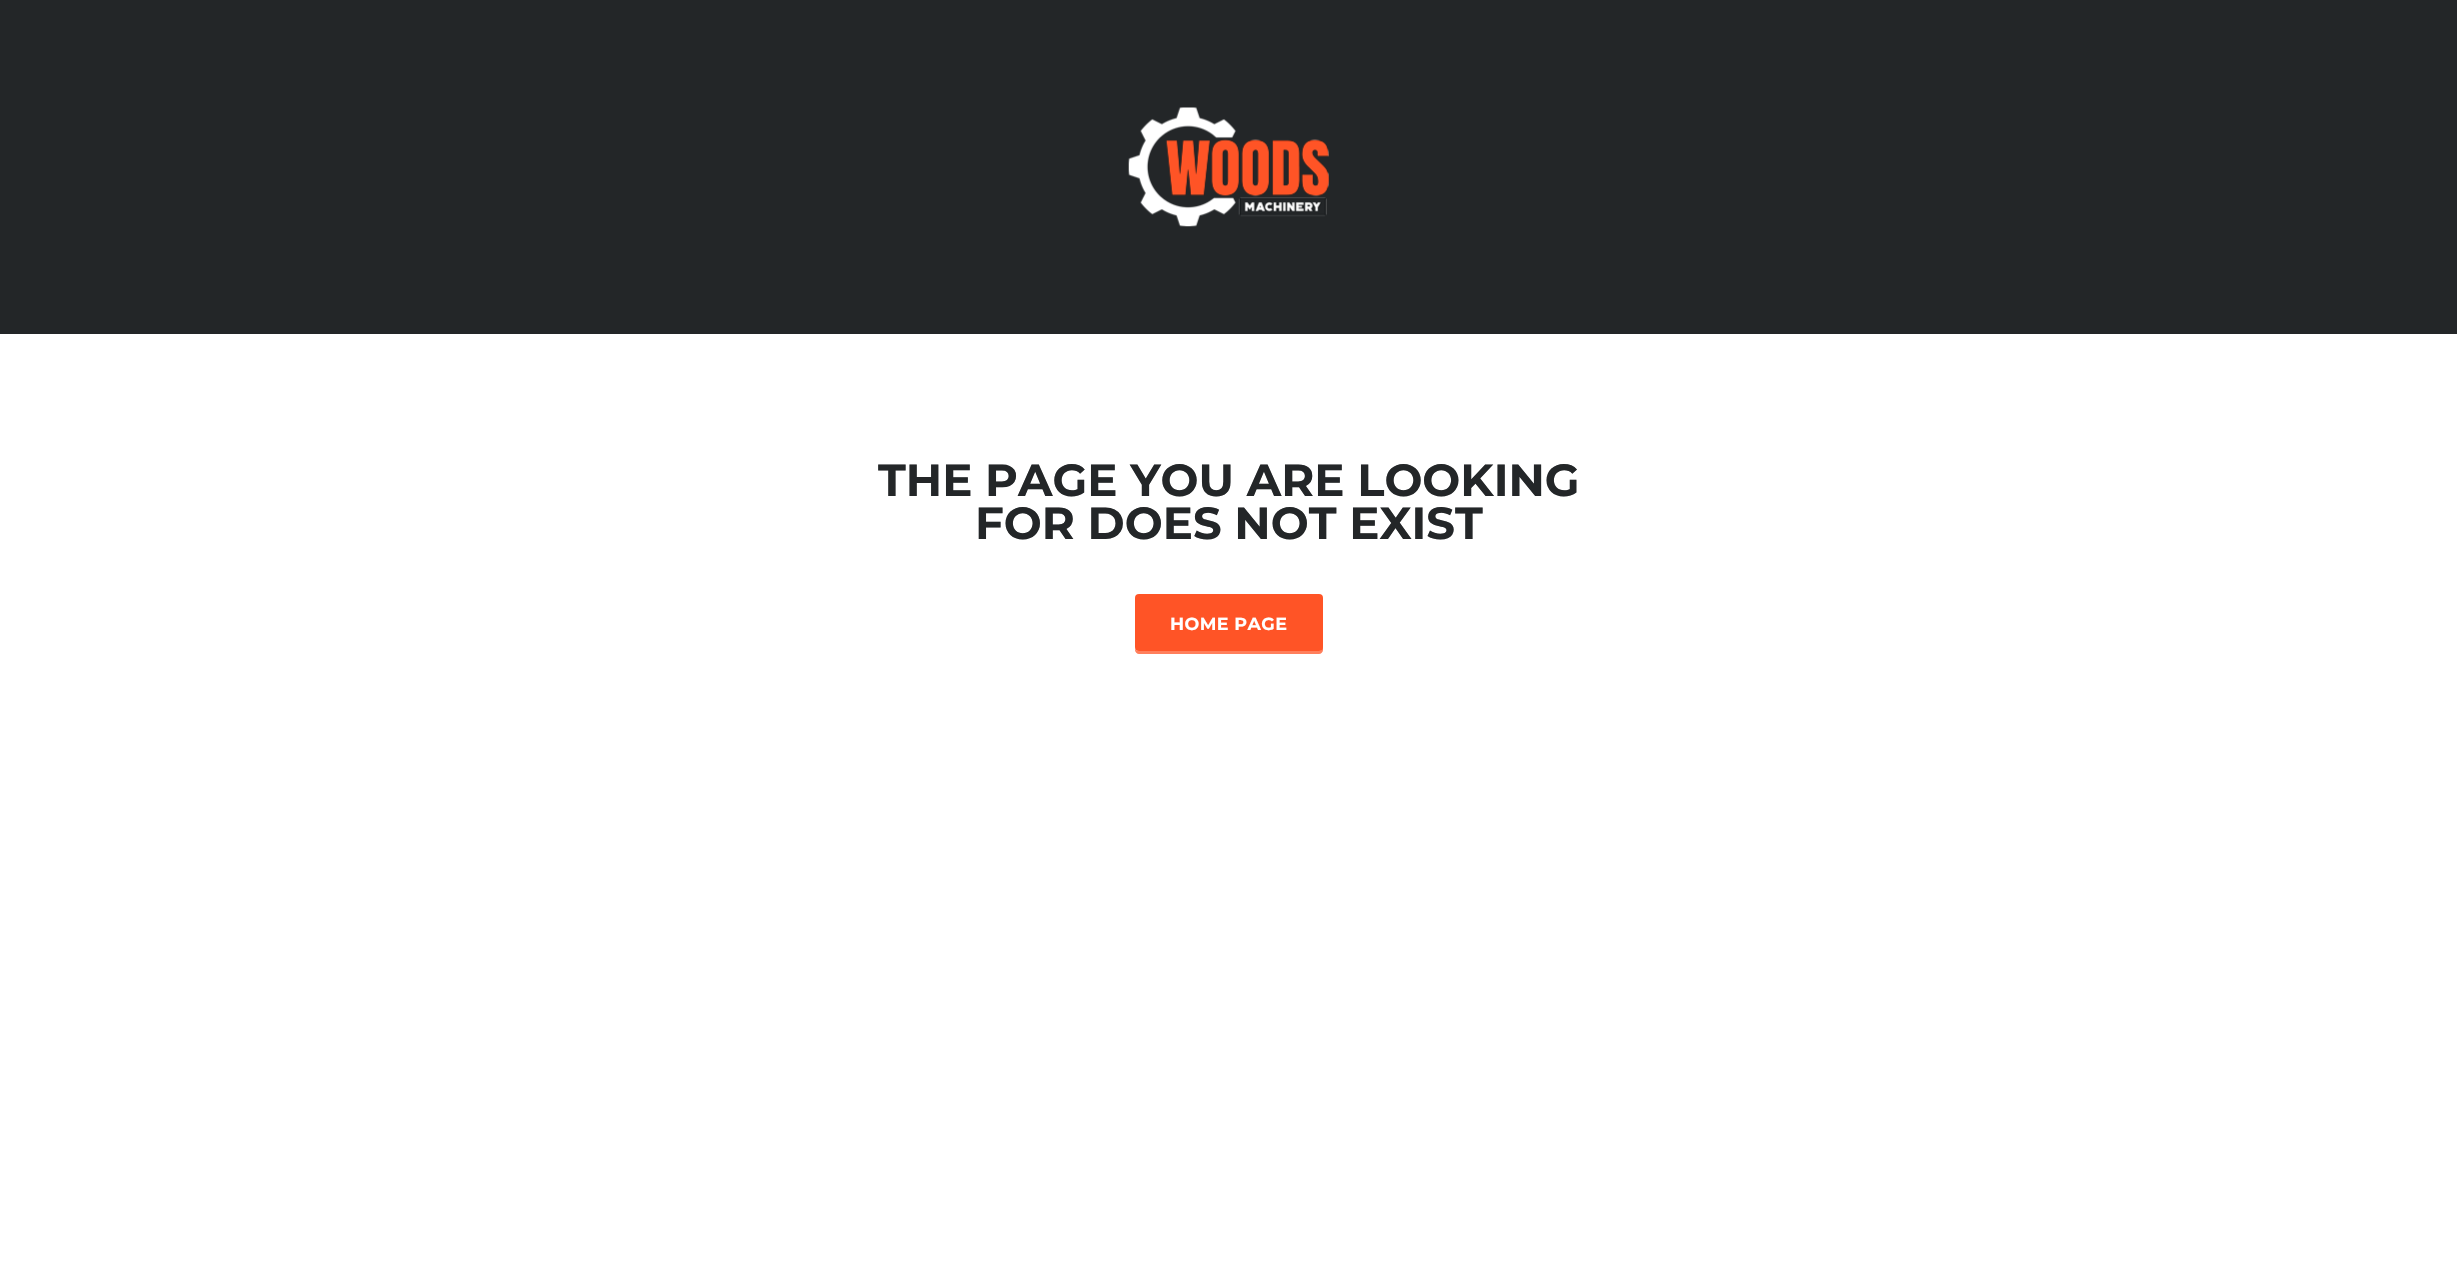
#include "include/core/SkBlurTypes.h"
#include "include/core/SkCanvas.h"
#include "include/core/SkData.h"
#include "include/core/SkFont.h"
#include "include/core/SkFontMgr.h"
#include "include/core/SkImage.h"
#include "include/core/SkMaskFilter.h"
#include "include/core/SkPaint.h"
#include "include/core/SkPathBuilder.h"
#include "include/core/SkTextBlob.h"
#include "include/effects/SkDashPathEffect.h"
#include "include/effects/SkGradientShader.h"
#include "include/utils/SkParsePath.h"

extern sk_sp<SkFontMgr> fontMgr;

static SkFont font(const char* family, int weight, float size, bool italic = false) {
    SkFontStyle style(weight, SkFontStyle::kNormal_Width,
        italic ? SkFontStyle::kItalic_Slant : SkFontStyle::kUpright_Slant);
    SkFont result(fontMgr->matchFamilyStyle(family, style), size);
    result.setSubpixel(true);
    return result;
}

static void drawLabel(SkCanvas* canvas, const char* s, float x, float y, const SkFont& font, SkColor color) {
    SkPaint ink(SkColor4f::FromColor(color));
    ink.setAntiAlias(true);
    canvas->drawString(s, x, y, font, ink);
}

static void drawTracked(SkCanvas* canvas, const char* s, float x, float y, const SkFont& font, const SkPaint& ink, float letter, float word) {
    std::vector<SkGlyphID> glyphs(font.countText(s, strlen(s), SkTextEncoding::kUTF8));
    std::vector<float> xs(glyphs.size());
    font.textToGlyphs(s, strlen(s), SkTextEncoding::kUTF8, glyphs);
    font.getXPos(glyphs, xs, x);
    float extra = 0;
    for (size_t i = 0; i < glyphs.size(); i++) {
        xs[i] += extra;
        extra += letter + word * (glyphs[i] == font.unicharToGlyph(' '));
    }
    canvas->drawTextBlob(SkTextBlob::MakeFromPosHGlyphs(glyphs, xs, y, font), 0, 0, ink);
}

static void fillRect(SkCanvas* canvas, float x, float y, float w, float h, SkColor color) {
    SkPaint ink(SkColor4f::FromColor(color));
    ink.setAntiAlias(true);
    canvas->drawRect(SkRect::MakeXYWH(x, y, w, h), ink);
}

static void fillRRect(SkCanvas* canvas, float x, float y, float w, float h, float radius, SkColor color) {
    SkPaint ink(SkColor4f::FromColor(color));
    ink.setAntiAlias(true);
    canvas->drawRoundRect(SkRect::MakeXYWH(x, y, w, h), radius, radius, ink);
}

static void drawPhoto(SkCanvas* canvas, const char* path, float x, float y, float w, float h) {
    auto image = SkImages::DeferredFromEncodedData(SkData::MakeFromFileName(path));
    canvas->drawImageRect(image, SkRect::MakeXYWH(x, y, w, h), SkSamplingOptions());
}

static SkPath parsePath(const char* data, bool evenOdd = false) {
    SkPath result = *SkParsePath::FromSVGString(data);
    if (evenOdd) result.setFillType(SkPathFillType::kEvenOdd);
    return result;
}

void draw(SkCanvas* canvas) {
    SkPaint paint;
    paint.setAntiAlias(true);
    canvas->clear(0xFFFFFFFF);
    fillRect(canvas, 0, 0, 2457, 334, 0xFF232628);
    drawPhoto(canvas, "assets/img1.png", 1128, 107, 201, 120);
    SkFont font1 = font("Montserrat", 700, 45);
    drawLabel(canvas, "THE PAGE YOU ARE LOOKING", 878, 496, font1, 0xFF232628);
    drawLabel(canvas, "FOR DOES NOT EXIST", 975, 539, font1, 0xFF232628);
    paint.setColor(0xFFFF7F5C);
    canvas->drawPath(parsePath("M1135 648V650C1135 652 1137 654 1139 654H1319C1321 654 1323 652 1323 650V600L1322 598V648C1322 650 1321 651 1319 651H1139C1137 651 1135 650 1135 648Z"), paint);
    fillRRect(canvas, 1135, 594, 188, 57, 4, 0xFFFF5426);
    SkFont font2 = font("Montserrat", 700, 17.5f);
    paint.setColor(0xFFFFFFFF);
    drawTracked(canvas, "HOME PAGE", 1170, 630, font2, paint, 0.4f, 0);
}
